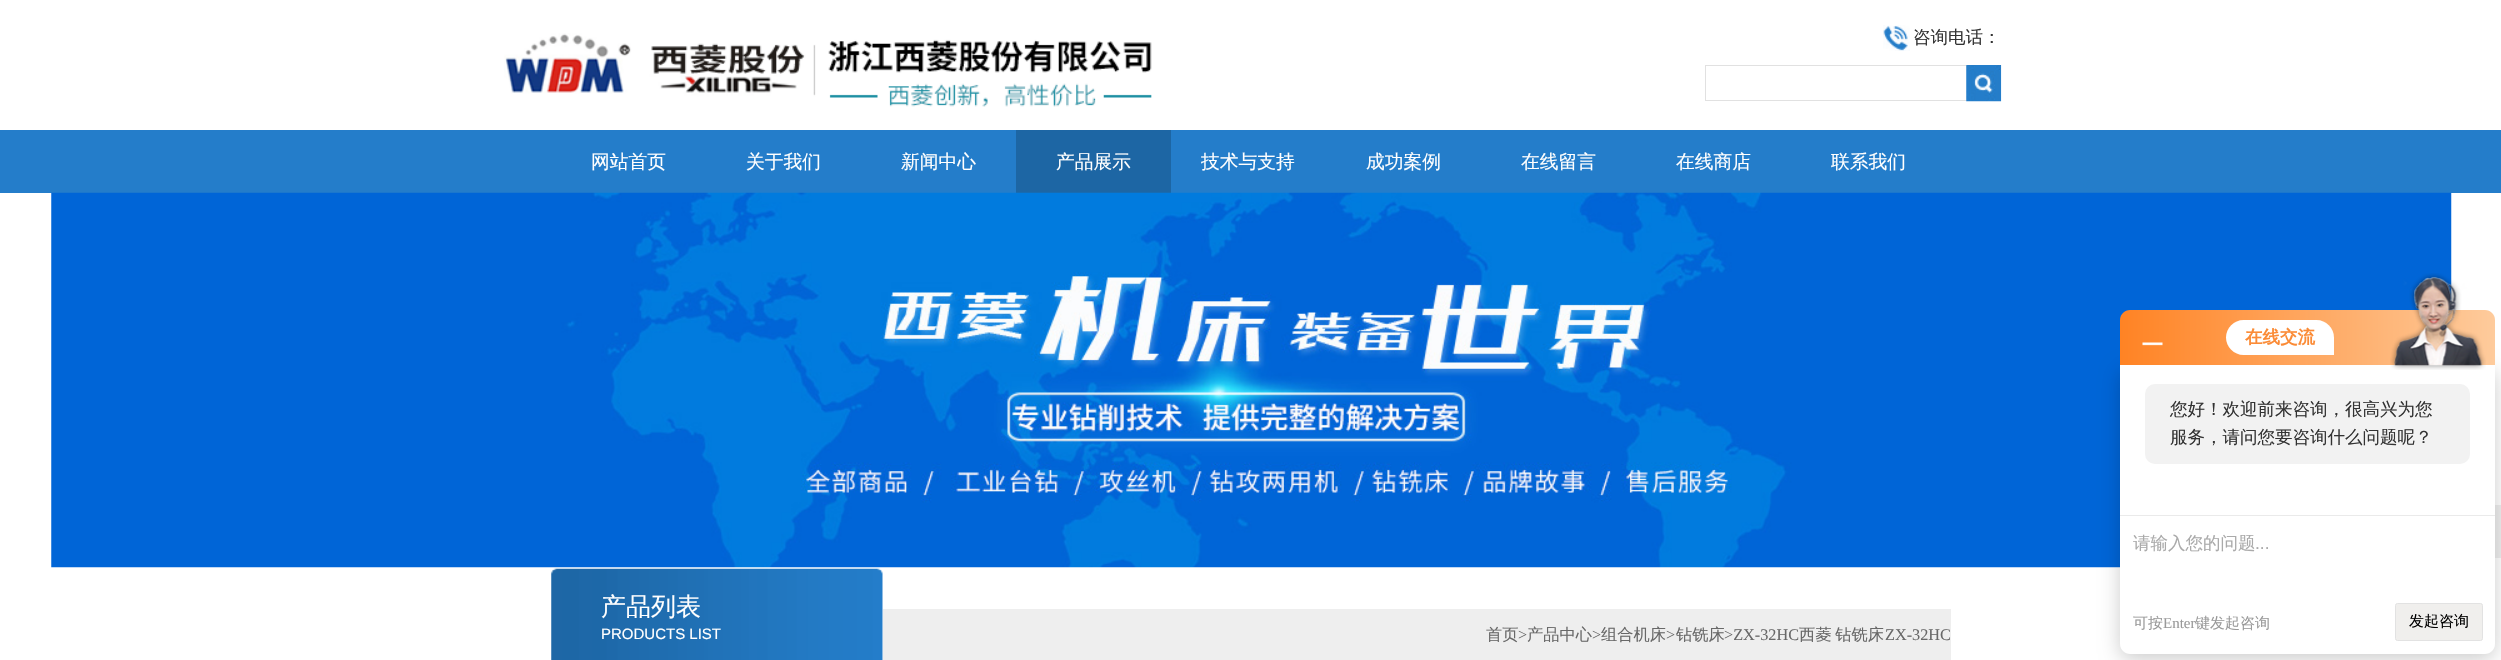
#include "include/core/SkBlurTypes.h"
#include "include/core/SkCanvas.h"
#include "include/core/SkData.h"
#include "include/core/SkFont.h"
#include "include/core/SkFontMgr.h"
#include "include/core/SkImage.h"
#include "include/core/SkMaskFilter.h"
#include "include/core/SkPaint.h"
#include "include/core/SkPathBuilder.h"
#include "include/core/SkTextBlob.h"
#include "include/effects/SkDashPathEffect.h"
#include "include/effects/SkGradientShader.h"
#include "include/utils/SkParsePath.h"

extern sk_sp<SkFontMgr> fontMgr;

static SkFont font(const char* family, int weight, float size, bool italic = false) {
    SkFontStyle style(weight, SkFontStyle::kNormal_Width,
        italic ? SkFontStyle::kItalic_Slant : SkFontStyle::kUpright_Slant);
    SkFont result(fontMgr->matchFamilyStyle(family, style), size);
    result.setSubpixel(true);
    return result;
}

static void drawLabel(SkCanvas* canvas, const char* s, float x, float y, const SkFont& font, SkColor color) {
    SkPaint ink(SkColor4f::FromColor(color));
    ink.setAntiAlias(true);
    canvas->drawString(s, x, y, font, ink);
}

static void drawTracked(SkCanvas* canvas, const char* s, float x, float y, const SkFont& font, const SkPaint& ink, float letter, float word) {
    std::vector<SkGlyphID> glyphs(font.countText(s, strlen(s), SkTextEncoding::kUTF8));
    std::vector<float> xs(glyphs.size());
    font.textToGlyphs(s, strlen(s), SkTextEncoding::kUTF8, glyphs);
    font.getXPos(glyphs, xs, x);
    float extra = 0;
    for (size_t i = 0; i < glyphs.size(); i++) {
        xs[i] += extra;
        extra += letter + word * (glyphs[i] == font.unicharToGlyph(' '));
    }
    canvas->drawTextBlob(SkTextBlob::MakeFromPosHGlyphs(glyphs, xs, y, font), 0, 0, ink);
}

static void fillRect(SkCanvas* canvas, float x, float y, float w, float h, SkColor color) {
    SkPaint ink(SkColor4f::FromColor(color));
    ink.setAntiAlias(true);
    canvas->drawRect(SkRect::MakeXYWH(x, y, w, h), ink);
}

static void fillRRect(SkCanvas* canvas, float x, float y, float w, float h, float radius, SkColor color) {
    SkPaint ink(SkColor4f::FromColor(color));
    ink.setAntiAlias(true);
    canvas->drawRoundRect(SkRect::MakeXYWH(x, y, w, h), radius, radius, ink);
}

static void drawPhoto(SkCanvas* canvas, const char* path, float x, float y, float w, float h) {
    auto image = SkImages::DeferredFromEncodedData(SkData::MakeFromFileName(path));
    canvas->drawImageRect(image, SkRect::MakeXYWH(x, y, w, h), SkSamplingOptions());
}

static SkPath parsePath(const char* data, bool evenOdd = false) {
    SkPath result = *SkParsePath::FromSVGString(data);
    if (evenOdd) result.setFillType(SkPathFillType::kEvenOdd);
    return result;
}

void draw(SkCanvas* canvas) {
    SkPaint paint;
    paint.setAntiAlias(true);
    canvas->clear(0xFFFFFFFF);
    fillRect(canvas, 2495, 505, 6, 53, 0xFFEEEEEE);
    drawPhoto(canvas, "assets/img1.png", 504, 33, 648, 74);
    drawPhoto(canvas, "assets/img2.png", 1883, 25, 27, 26);
    SkFont font1 = font("WenQuanYi Zen Hei", 500, 17.5f);
    drawLabel(canvas, "咨询电话：", 1913, 43, font1, 0xFF333333);
    fillRect(canvas, 1705, 65, 261, 1, 0xFFE1E1E1);
    fillRect(canvas, 1705, 100, 261, 1, 0xFFE1E1E1);
    fillRect(canvas, 1705, 65, 1, 36, 0xFFE1E1E1);
    drawPhoto(canvas, "assets/img3.png", 1966, 65, 36, 37);
    fillRect(canvas, 0, 130, 2501, 63, 0xFF247DCA);
    SkFont font2 = font("WenQuanYi Zen Hei", 500, 18.75f);
    drawLabel(canvas, "网站首页", 591, 168, font2, 0xFFFFFFFF);
    drawLabel(canvas, "关于我们", 746, 168, font2, 0xFFFFFFFF);
    drawLabel(canvas, "新闻中心", 901, 168, font2, 0xFFFFFFFF);
    fillRect(canvas, 1016, 130, 155, 63, 0xFF1D66A4);
    drawLabel(canvas, "产品展示", 1056, 168, font2, 0xFFFFFFFF);
    drawLabel(canvas, "技术与支持", 1201, 168, font2, 0xFFFFFFFF);
    drawLabel(canvas, "成功案例", 1366, 168, font2, 0xFFFFFFFF);
    drawLabel(canvas, "在线留言", 1521, 168, font2, 0xFFFFFFFF);
    drawLabel(canvas, "在线商店", 1676, 168, font2, 0xFFFFFFFF);
    drawLabel(canvas, "联系我们", 1831, 168, font2, 0xFFFFFFFF);
    drawPhoto(canvas, "assets/img4.png", 51, 192, 2401, 376);
    drawPhoto(canvas, "assets/img5.png", 551, 568, 332, 92);
    SkFont font3 = font("WenQuanYi Zen Hei", 500, 25);
    drawLabel(canvas, "产品列表", 601, 615, font3, 0xFFFFFFFF);
    SkFont font4 = font("Liberation Sans", 400, 15);
    drawLabel(canvas, "PRODUCTS LIST", 601, 639, font4, 0xFFFFFFFF);
    fillRect(canvas, 883, 609, 1068, 51, 0xFFEEEEEE);
    SkFont font5 = font("WenQuanYi Zen Hei", 500, 16.25f);
    drawLabel(canvas, "首页", 1486, 640, font5, 0xFF686868);
    SkFont font6 = font("Liberation Serif", 400, 16.25f);
    drawLabel(canvas, ">", 1518, 640, font6, 0xFF686868);
    drawLabel(canvas, "产品中心", 1527, 640, font5, 0xFF686868);
    drawLabel(canvas, ">", 1592, 640, font6, 0xFF686868);
    drawLabel(canvas, "组合机床", 1601, 640, font5, 0xFF686868);
    drawLabel(canvas, ">", 1666, 640, font6, 0xFF686868);
    drawLabel(canvas, "钻铣床", 1676, 640, font5, 0xFF686868);
    drawLabel(canvas, ">ZX-32HC", 1724, 640, font6, 0xFF686868);
    paint.setColor(0xFF686868);
    drawTracked(canvas, "西菱 钻铣床", 1799, 640, font5, paint, 0, -1);
    drawLabel(canvas, "ZX-32HC", 1885, 640, font6, 0xFF686868);
    paint.setColor(0x33000000);
    paint.setMaskFilter(SkMaskFilter::MakeBlur(kNormal_SkBlurStyle, 10));
    canvas->drawRoundRect(SkRect::MakeXYWH(2120, 370, 375, 289), 10, 10, paint);
    paint.setMaskFilter(nullptr);
    {
        const SkColor colors[] = {0xFFFF8324, 0xFFFECB9C};
        const float stops[] = {0, 1};
        const SkPoint ends[] = {{2120, 338}, {2495, 338}};
        paint.setShader(SkGradientShader::MakeLinear(ends, colors, stops, 2, SkTileMode::kClamp));
        paint.setAlpha(255);
    }
    canvas->drawPath(parsePath("M2130 310H2485C2490.5 310 2495 314.5 2495 320V365H2120V320C2120 314.5 2124.5 310 2130 310Z"), paint);
    drawPhoto(canvas, "assets/img6.png", 2142, 342, 21, 4);
    paint.setShader(nullptr);
    paint.setColor(0xFFFFFFFF);
    canvas->drawPath(parsePath("M2243.5 320H2316.5C2326 320 2334 328 2334 337.5V355H2243.5C2234 355 2226 347 2226 337.5C2226 328 2234 320 2243.5 320Z"), paint);
    SkFont font7 = font("WenQuanYi Zen Hei", 700, 17.5f);
    drawLabel(canvas, "在线交流", 2245, 343, font7, 0xFFFB8B36);
    canvas->drawPath(parsePath("M2120 365H2495V644C2495 649.5 2490.5 654 2485 654H2130C2124.5 654 2120 649.5 2120 644Z"), paint);
    drawPhoto(canvas, "assets/img7.png", 2390, 273, 96, 97);
    fillRRect(canvas, 2145, 384, 325, 80, 10, 0xFFF2F2F2);
    drawLabel(canvas, "您好！欢迎前来咨询，很高兴为您", 2170, 415, font1, 0xFF333333);
    drawLabel(canvas, "服务，请问您要咨询什么问题呢？", 2170, 443, font1, 0xFF333333);
    fillRect(canvas, 2120, 515, 375, 1, 0xFFEAEAEA);
    drawLabel(canvas, "请输入您的问题", 2133, 549, font1, 0xFFAAAAAA);
    SkFont font8 = font("Liberation Sans", 400, 17.5f);
    drawLabel(canvas, "...", 2255, 549, font8, 0xFFAAAAAA);
    SkFont font9 = font("WenQuanYi Zen Hei", 500, 15);
    drawLabel(canvas, "可按", 2133, 628, font9, 0xFF999999);
    SkFont font10 = font("Liberation Serif", 400, 15);
    drawLabel(canvas, "Enter", 2163, 628, font10, 0xFF999999);
    drawLabel(canvas, "键发起咨询", 2195, 628, font9, 0xFF999999);
    paint.setColor(0xFFF0EFED);
    canvas->drawRoundRect(SkRect::MakeXYWH(2395.5f, 603.5f, 87, 37), 2, 2, paint);
    paint.setStroke(true);
    paint.setStrokeWidth(1);
    paint.setColor(0xFFE2E2E2);
    canvas->drawRoundRect(SkRect::MakeXYWH(2395.5f, 603.5f, 87, 37), 2, 2, paint);
    drawLabel(canvas, "发起咨询", 2409, 626, font9, 0xFF000000);
}
